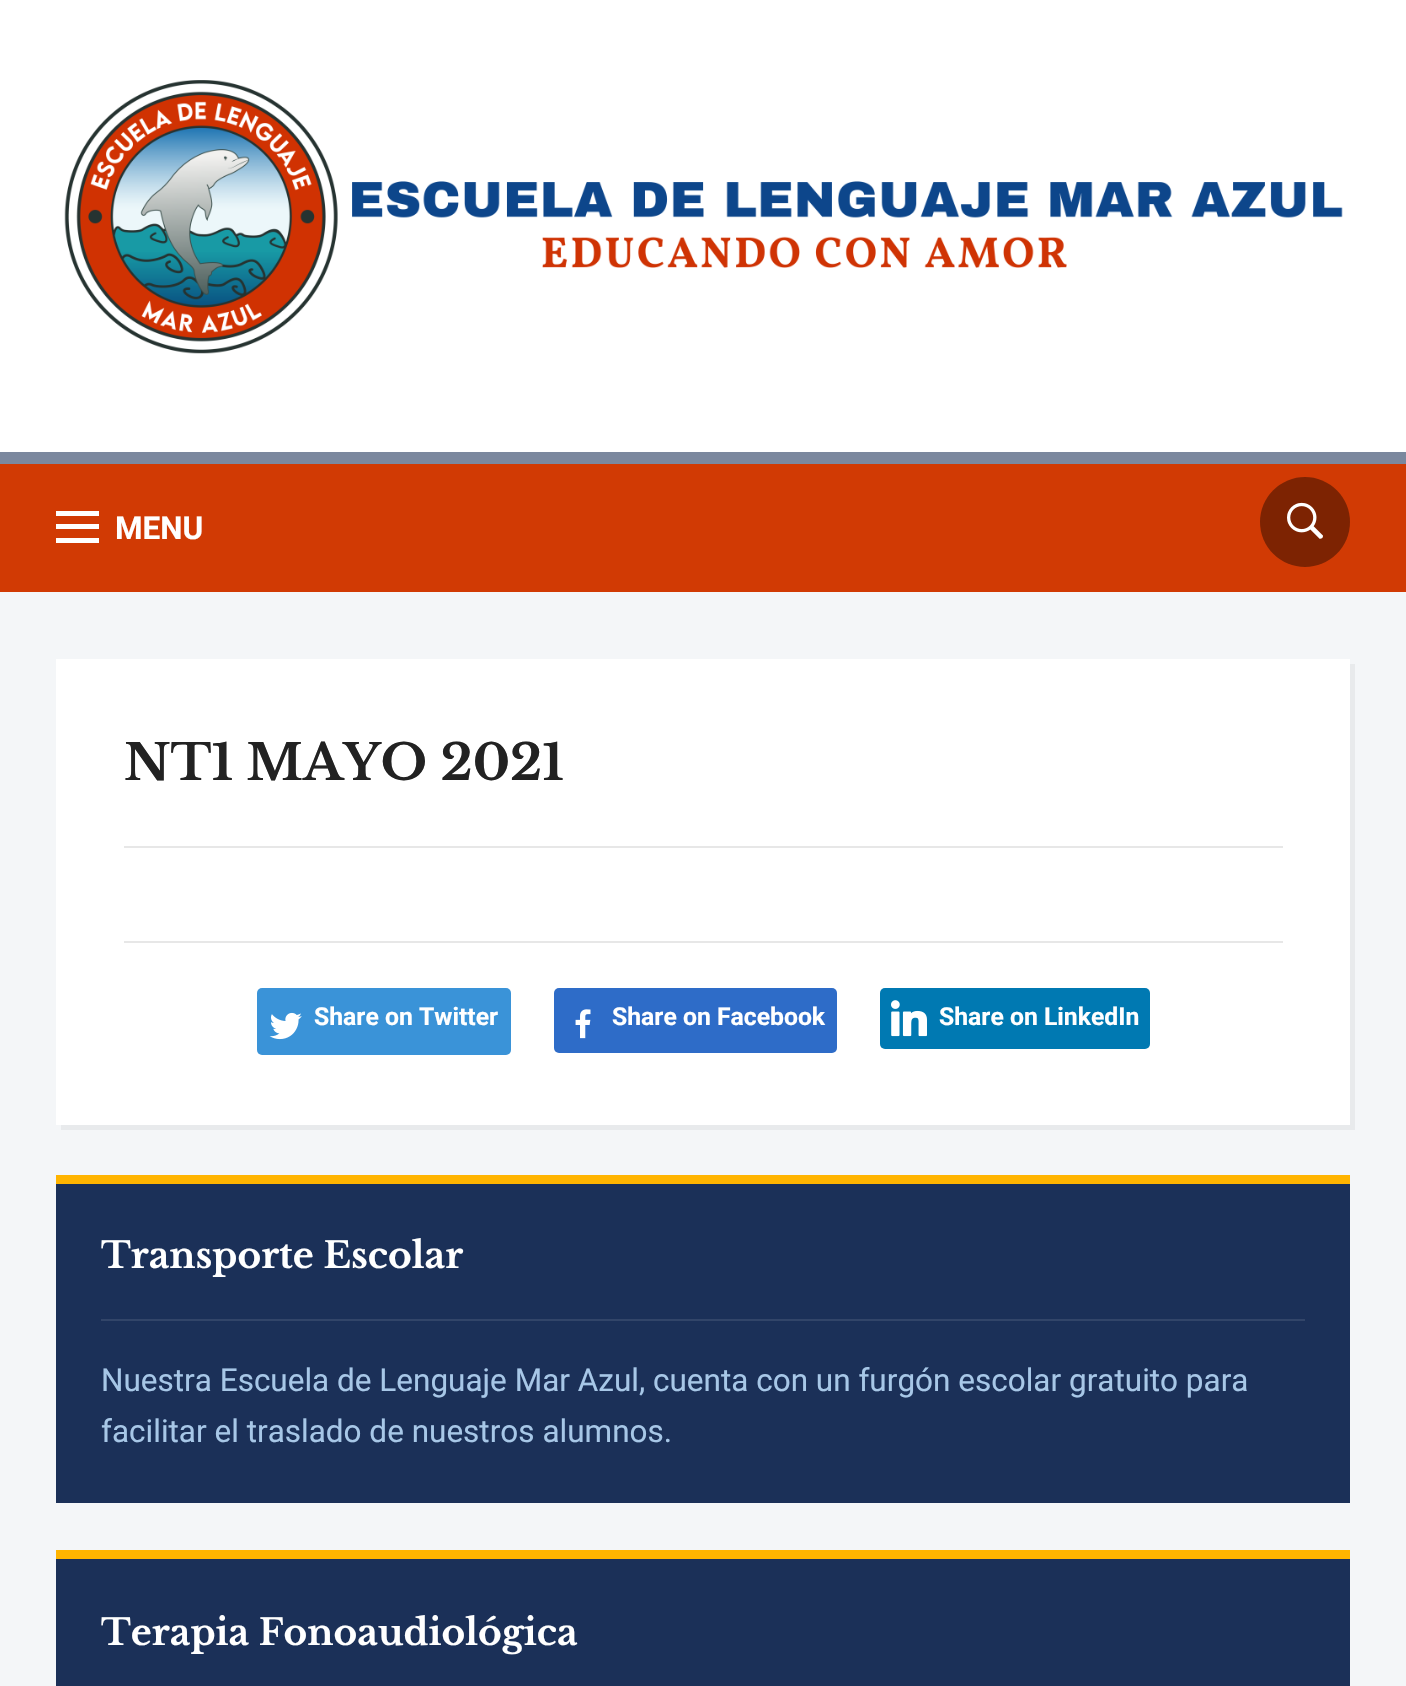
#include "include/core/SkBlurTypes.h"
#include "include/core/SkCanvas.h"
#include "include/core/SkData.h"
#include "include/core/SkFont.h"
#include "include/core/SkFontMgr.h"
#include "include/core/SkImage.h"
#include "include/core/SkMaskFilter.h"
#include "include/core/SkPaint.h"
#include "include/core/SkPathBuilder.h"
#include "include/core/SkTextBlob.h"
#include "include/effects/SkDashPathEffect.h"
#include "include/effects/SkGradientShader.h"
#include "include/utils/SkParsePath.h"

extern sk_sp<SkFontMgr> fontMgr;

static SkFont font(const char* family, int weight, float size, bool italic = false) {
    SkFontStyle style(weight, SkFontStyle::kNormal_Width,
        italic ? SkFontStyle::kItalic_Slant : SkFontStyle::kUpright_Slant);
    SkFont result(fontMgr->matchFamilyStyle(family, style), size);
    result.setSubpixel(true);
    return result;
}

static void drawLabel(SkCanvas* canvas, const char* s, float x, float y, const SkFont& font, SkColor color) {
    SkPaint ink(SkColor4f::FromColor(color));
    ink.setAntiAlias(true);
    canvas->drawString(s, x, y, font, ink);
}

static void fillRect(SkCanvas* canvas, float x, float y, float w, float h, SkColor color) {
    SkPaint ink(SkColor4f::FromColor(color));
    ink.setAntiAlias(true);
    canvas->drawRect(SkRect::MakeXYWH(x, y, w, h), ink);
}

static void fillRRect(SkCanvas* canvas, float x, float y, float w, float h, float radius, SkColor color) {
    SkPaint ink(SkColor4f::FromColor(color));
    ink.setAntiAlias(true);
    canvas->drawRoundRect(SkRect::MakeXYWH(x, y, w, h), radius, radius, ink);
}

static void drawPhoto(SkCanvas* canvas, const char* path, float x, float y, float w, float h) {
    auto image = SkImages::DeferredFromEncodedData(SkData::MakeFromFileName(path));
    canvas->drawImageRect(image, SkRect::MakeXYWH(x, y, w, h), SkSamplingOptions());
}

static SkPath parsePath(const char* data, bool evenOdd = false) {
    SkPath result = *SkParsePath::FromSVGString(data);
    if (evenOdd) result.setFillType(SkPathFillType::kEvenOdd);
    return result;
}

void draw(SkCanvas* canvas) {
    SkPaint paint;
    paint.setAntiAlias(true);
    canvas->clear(0xFFF4F6F8);
    fillRect(canvas, 0, 0, 1406, 452, 0xFFFFFFFF);
    drawPhoto(canvas, "assets/img1.png", 64, 80, 1279, 274);
    fillRect(canvas, 0, 464, 1406, 128, 0xFFD13A04);
    fillRect(canvas, 0, 452, 1406, 12, 0xFF7B889E);
    fillRect(canvas, 56, 511, 43, 5, 0xFFFFFFFF);
    fillRect(canvas, 56, 524, 43, 5, 0xFFFFFFFF);
    fillRect(canvas, 56, 538, 43, 5, 0xFFFFFFFF);
    SkFont font1 = font("Roboto", 700, 31.5f);
    drawLabel(canvas, "MENU", 115, 539, font1, 0xFFFFFFFF);
    paint.setColor(0xFF7D2302);
    canvas->drawCircle(1305, 522, 45, paint);
    drawPhoto(canvas, "assets/img2.png", 1287, 502, 36, 37);
    paint.setColor(0xFFE8EAEC);
    canvas->drawPath(parsePath("M61 1125V1130H1355V664H1350V1125Z"), paint);
    fillRect(canvas, 56, 659, 1294, 466, 0xFFFFFFFF);
    SkFont font2 = font("Libre Baskerville", 700, 49.5f);
    drawLabel(canvas, "NT1 MAYO 2021", 124, 780, font2, 0xFF222222);
    fillRect(canvas, 124, 846, 1159, 2, 0xFFE7E7E7);
    fillRect(canvas, 124, 941, 1159, 2, 0xFFE7E7E7);
    fillRRect(canvas, 257, 988, 254, 67, 5, 0xFF3A93D8);
    drawPhoto(canvas, "assets/img3.png", 269, 1012, 33, 28);
    SkFont font3 = font("Roboto", 700, 24.75f);
    drawLabel(canvas, "Share on Twitter", 314, 1025, font3, 0xFFFFFFFF);
    fillRRect(canvas, 554, 988, 283, 65, 5, 0xFF2E6CC8);
    drawPhoto(canvas, "assets/img4.png", 575, 1009, 16, 30);
    drawLabel(canvas, "Share on Facebook", 612, 1025, font3, 0xFFFFFFFF);
    fillRRect(canvas, 880, 988, 270, 61, 5, 0xFF0079B2);
    drawPhoto(canvas, "assets/img5.png", 891, 1000, 36, 37);
    drawLabel(canvas, "Share on LinkedIn", 939, 1025, font3, 0xFFFFFFFF);
    fillRect(canvas, 56, 1184, 1294, 319, 0xFF1B3058);
    fillRect(canvas, 56, 1175, 1294, 9, 0xFFFFB400);
    fillRect(canvas, 101, 1319, 1204, 2, 0xFF324569);
    SkFont font4 = font("Libre Baskerville", 700, 36);
    drawLabel(canvas, "Transporte Escolar", 101, 1268, font4, 0xFFFFFFFF);
    SkFont font5 = font("Roboto", 400, 31.5f);
    drawLabel(canvas, "Nuestra Escuela de Lenguaje Mar Azul, cuenta con un furgón escolar gratuito para", 101, 1391, font5, 0xFFA7C7E7);
    drawLabel(canvas, "facilitar el traslado de nuestros alumnos.", 101, 1442, font5, 0xFFA7C7E7);
    fillRect(canvas, 56, 1559, 1294, 127, 0xFF1B3058);
    fillRect(canvas, 56, 1550, 1294, 9, 0xFFFFB400);
    drawLabel(canvas, "Terapia Fonoaudiológica", 101, 1645, font4, 0xFFFFFFFF);
}
